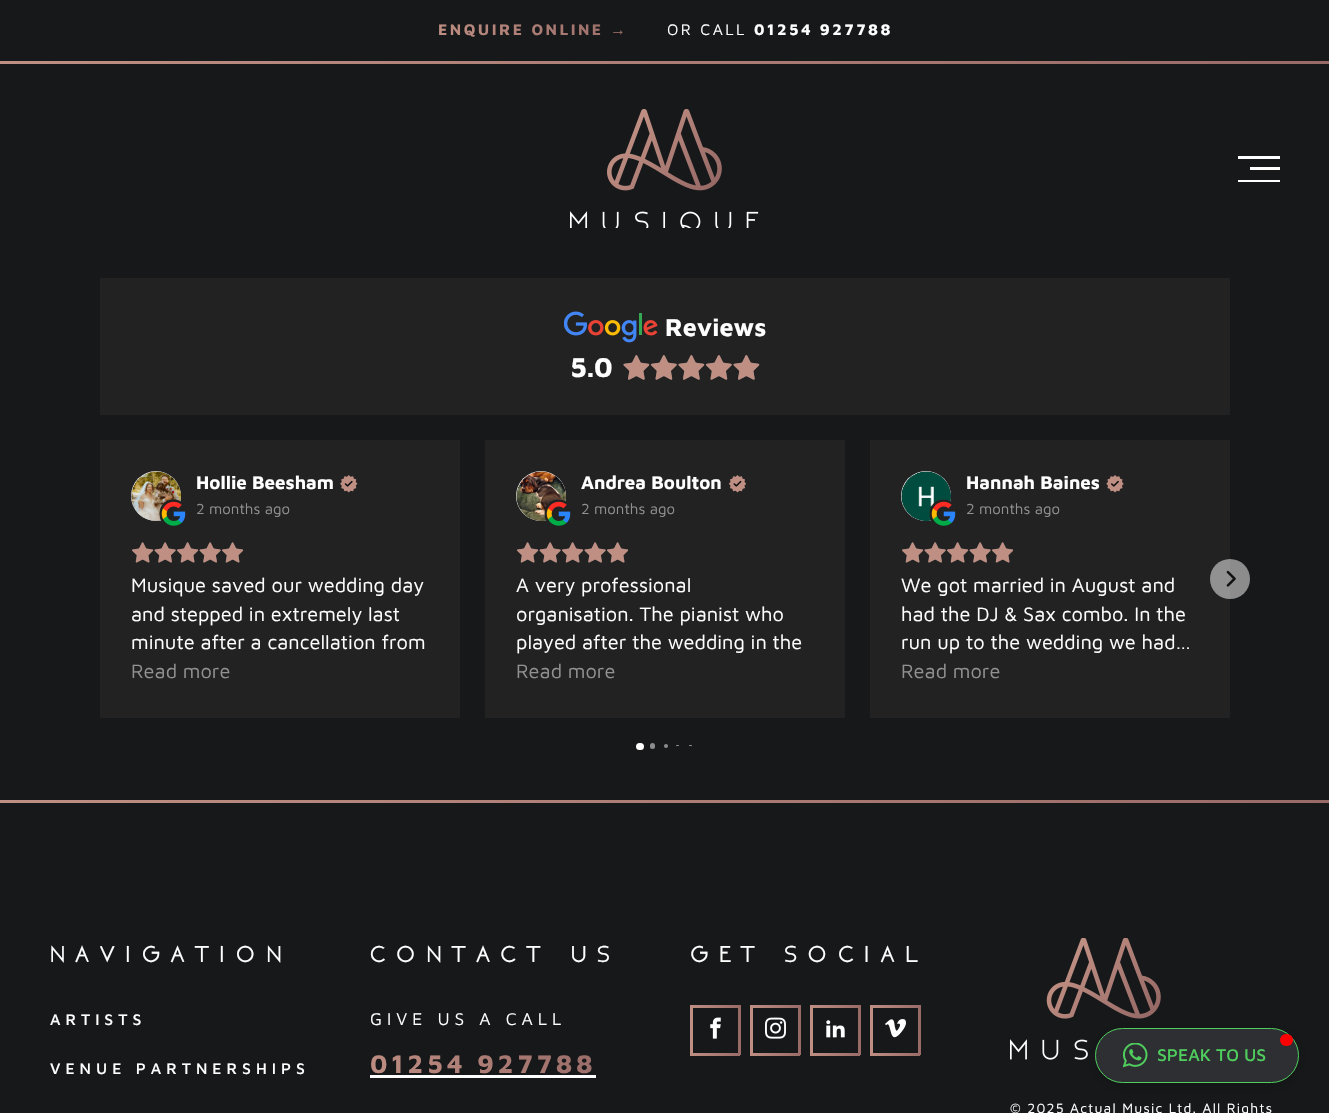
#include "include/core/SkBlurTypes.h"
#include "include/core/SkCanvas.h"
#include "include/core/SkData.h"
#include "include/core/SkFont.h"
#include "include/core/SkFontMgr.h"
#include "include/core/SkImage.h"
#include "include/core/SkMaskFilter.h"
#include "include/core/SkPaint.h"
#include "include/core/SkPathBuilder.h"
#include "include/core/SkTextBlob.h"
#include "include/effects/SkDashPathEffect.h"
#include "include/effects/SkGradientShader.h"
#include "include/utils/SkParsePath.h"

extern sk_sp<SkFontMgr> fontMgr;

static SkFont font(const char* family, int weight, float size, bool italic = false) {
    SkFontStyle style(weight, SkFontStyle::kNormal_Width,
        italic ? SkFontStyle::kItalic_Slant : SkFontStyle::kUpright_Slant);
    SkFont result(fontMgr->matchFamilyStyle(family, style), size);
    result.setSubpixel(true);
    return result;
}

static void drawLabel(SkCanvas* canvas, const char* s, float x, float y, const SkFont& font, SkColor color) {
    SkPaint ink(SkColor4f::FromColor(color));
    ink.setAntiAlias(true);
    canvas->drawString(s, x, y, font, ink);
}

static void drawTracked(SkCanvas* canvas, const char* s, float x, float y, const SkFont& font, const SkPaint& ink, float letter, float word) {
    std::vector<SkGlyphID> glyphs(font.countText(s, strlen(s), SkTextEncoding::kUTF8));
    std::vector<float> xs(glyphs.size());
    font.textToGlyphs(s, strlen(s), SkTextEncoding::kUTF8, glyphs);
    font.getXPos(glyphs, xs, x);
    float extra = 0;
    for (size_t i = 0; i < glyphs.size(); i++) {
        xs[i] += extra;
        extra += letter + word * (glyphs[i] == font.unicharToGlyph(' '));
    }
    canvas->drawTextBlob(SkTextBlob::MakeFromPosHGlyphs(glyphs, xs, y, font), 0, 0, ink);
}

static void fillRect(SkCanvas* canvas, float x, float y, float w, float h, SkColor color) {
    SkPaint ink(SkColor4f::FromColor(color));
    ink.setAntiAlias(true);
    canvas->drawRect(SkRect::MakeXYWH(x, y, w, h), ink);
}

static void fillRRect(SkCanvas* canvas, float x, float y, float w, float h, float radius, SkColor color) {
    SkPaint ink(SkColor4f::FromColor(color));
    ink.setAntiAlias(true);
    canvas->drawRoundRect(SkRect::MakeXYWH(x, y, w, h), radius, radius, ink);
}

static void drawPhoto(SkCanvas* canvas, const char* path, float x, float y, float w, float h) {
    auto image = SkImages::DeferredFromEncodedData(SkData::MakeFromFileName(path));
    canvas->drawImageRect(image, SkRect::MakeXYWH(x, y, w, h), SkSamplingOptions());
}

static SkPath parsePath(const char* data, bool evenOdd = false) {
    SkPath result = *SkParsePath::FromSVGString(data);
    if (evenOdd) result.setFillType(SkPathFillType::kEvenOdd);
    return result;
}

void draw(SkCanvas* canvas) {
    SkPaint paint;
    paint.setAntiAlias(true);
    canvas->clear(0xFF17181A);
    SkFont font1 = font("Maven Pro", 700, 15.75f);
    {
        const SkColor colors[] = {0xFFBF8F83, 0xFF996B67};
        const float stops[] = {0, 1};
        const SkPoint ends[] = {{481, 82}, {585, -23}};
        paint.setShader(SkGradientShader::MakeLinear(ends, colors, stops, 2, SkTileMode::kClamp));
        paint.setAlpha(255);
    }
    drawTracked(canvas, "ENQUIRE ONLINE", 438, 35, font1, paint, 2.5f, 0);
    SkFont font2 = font("Liberation Sans", 700, 15.75f);
    drawTracked(canvas, "→", 610, 35, font2, paint, 2.5f, 0);
    SkFont font3 = font("Maven Pro", 400, 15.75f);
    paint.setShader(nullptr);
    paint.setColor(0xFFFFFFFF);
    drawTracked(canvas, "OR CALL", 667, 35, font3, paint, 2.5f, 0);
    drawTracked(canvas, "01254 927788", 754, 35, font1, paint, 2.5f, 0);
    {
        const SkColor colors[] = {0xFFBF8F83, 0xFF996B67};
        const float stops[] = {0, 1};
        const SkPoint ends[] = {{332, 396}, {998, -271}};
        paint.setShader(SkGradientShader::MakeLinear(ends, colors, stops, 2, SkTileMode::kClamp));
        paint.setAlpha(255);
    }
    canvas->drawRect(SkRect::MakeXYWH(0, 61, 1329, 3), paint);
    drawPhoto(canvas, "assets/img1.png", 570, 109, 189, 119);
    paint.setShader(nullptr);
    paint.setColor(0xFFFFFFFF);
    canvas->drawPath(parsePath("M1238 156H1280V159H1238ZM1250 167H1280V170H1250ZM1238 180H1280V182H1238Z"), paint);
    fillRect(canvas, 100, 278, 1130, 137, 0xFF222222);
    drawPhoto(canvas, "assets/img2.png", 564, 311, 94, 32);
    SkFont font4 = font("Maven Pro", 700, 25);
    drawLabel(canvas, "Reviews", 665, 336, font4, 0xFFFFFFFF);
    SkFont font5 = font("Maven Pro", 700, 28);
    drawLabel(canvas, "5.0", 570, 377, font5, 0xFFFFFFFF);
    drawPhoto(canvas, "assets/img3.png", 623, 355, 27, 25);
    drawPhoto(canvas, "assets/img4.png", 623, 355, 27, 25);
    drawPhoto(canvas, "assets/img5.png", 651, 355, 26, 25);
    drawPhoto(canvas, "assets/img6.png", 651, 355, 26, 25);
    drawPhoto(canvas, "assets/img3.png", 678, 355, 27, 25);
    drawPhoto(canvas, "assets/img4.png", 678, 355, 27, 25);
    drawPhoto(canvas, "assets/img5.png", 706, 355, 26, 25);
    drawPhoto(canvas, "assets/img6.png", 706, 355, 26, 25);
    drawPhoto(canvas, "assets/img3.png", 733, 355, 27, 25);
    drawPhoto(canvas, "assets/img4.png", 733, 355, 27, 25);
    fillRect(canvas, 100, 440, 360, 278, 0xFF222222);
    {
        const SkColor colors[] = {0xFFF2F2F2, 0xFFF7F7F7};
        const float stops[] = {0, 1};
        const SkPoint ends[] = {{156, 471}, {156, 521}};
        paint.setShader(SkGradientShader::MakeLinear(ends, colors, stops, 2, SkTileMode::kClamp));
        paint.setAlpha(255);
    }
    canvas->drawCircle(156, 496, 25, paint);
    drawPhoto(canvas, "assets/img7.png", 131, 471, 50, 50);
    paint.setStroke(true);
    paint.setStrokeWidth(1);
    paint.setShader(nullptr);
    paint.setColor(0x0D111111);
    canvas->drawRect(SkRect::MakeXYWH(131.5f, 471.5f, 49, 49), paint);
    drawPhoto(canvas, "assets/img8.png", 159, 499, 27, 27);
    SkFont font6 = font("Maven Pro", 700, 18.75f);
    drawLabel(canvas, "Hollie Beesham", 196, 489, font6, 0xFFFFFFFF);
    drawPhoto(canvas, "assets/img9.png", 340, 475, 18, 18);
    SkFont font7 = font("Maven Pro", 400, 15);
    drawLabel(canvas, "2 months ago", 196, 514, font7, 0xFF919191);
    drawPhoto(canvas, "assets/img10.png", 132, 542, 21, 21);
    drawPhoto(canvas, "assets/img11.png", 132, 542, 22, 21);
    drawPhoto(canvas, "assets/img12.png", 154, 542, 22, 21);
    drawPhoto(canvas, "assets/img13.png", 154, 542, 22, 21);
    drawPhoto(canvas, "assets/img10.png", 177, 542, 21, 21);
    drawPhoto(canvas, "assets/img11.png", 177, 542, 22, 21);
    drawPhoto(canvas, "assets/img12.png", 199, 542, 22, 21);
    drawPhoto(canvas, "assets/img13.png", 199, 542, 22, 21);
    drawPhoto(canvas, "assets/img10.png", 222, 542, 21, 21);
    drawPhoto(canvas, "assets/img11.png", 222, 542, 22, 21);
    SkFont font8 = font("Maven Pro", 400, 20);
    drawLabel(canvas, "Musique saved our wedding day", 131, 592, font8, 0xFFFFFFFF);
    drawLabel(canvas, "and stepped in extremely last", 131, 621, font8, 0xFFFFFFFF);
    drawLabel(canvas, "minute after a cancellation from", 131, 649, font8, 0xFFFFFFFF);
    drawLabel(canvas, "Read more", 131, 678, font8, 0xFF919191);
    fillRect(canvas, 485, 440, 360, 278, 0xFF222222);
    paint.setStroke(false);
    {
        const SkColor colors[] = {0xFFF2F2F2, 0xFFF7F7F7};
        const float stops[] = {0, 1};
        const SkPoint ends[] = {{541, 471}, {541, 521}};
        paint.setShader(SkGradientShader::MakeLinear(ends, colors, stops, 2, SkTileMode::kClamp));
        paint.setAlpha(255);
    }
    canvas->drawCircle(541, 496, 25, paint);
    drawPhoto(canvas, "assets/img14.png", 516, 471, 50, 50);
    paint.setStroke(true);
    paint.setShader(nullptr);
    paint.setColor(0x0D111111);
    canvas->drawRect(SkRect::MakeXYWH(516.5f, 471.5f, 49, 49), paint);
    drawPhoto(canvas, "assets/img15.png", 544, 499, 27, 27);
    drawLabel(canvas, "Andrea Boulton", 581, 489, font6, 0xFFFFFFFF);
    drawPhoto(canvas, "assets/img16.png", 729, 475, 17, 18);
    drawLabel(canvas, "2 months ago", 581, 514, font7, 0xFF919191);
    drawPhoto(canvas, "assets/img10.png", 517, 542, 21, 21);
    drawPhoto(canvas, "assets/img11.png", 517, 542, 22, 21);
    drawPhoto(canvas, "assets/img12.png", 539, 542, 22, 21);
    drawPhoto(canvas, "assets/img13.png", 539, 542, 22, 21);
    drawPhoto(canvas, "assets/img10.png", 562, 542, 21, 21);
    drawPhoto(canvas, "assets/img11.png", 562, 542, 22, 21);
    drawPhoto(canvas, "assets/img12.png", 584, 542, 22, 21);
    drawPhoto(canvas, "assets/img13.png", 584, 542, 22, 21);
    drawPhoto(canvas, "assets/img10.png", 607, 542, 21, 21);
    drawPhoto(canvas, "assets/img11.png", 607, 542, 22, 21);
    drawLabel(canvas, "A very professional", 516, 592, font8, 0xFFFFFFFF);
    drawLabel(canvas, "organisation. The pianist who", 516, 621, font8, 0xFFFFFFFF);
    drawLabel(canvas, "played after the wedding in the", 516, 649, font8, 0xFFFFFFFF);
    drawLabel(canvas, "Read more", 516, 678, font8, 0xFF919191);
    fillRect(canvas, 870, 440, 360, 278, 0xFF222222);
    paint.setStroke(false);
    {
        const SkColor colors[] = {0xFFF2F2F2, 0xFFF7F7F7};
        const float stops[] = {0, 1};
        const SkPoint ends[] = {{926, 471}, {926, 521}};
        paint.setShader(SkGradientShader::MakeLinear(ends, colors, stops, 2, SkTileMode::kClamp));
        paint.setAlpha(255);
    }
    canvas->drawCircle(926, 496, 25, paint);
    drawPhoto(canvas, "assets/img17.png", 901, 471, 50, 50);
    paint.setStroke(true);
    paint.setShader(nullptr);
    paint.setColor(0x0D111111);
    canvas->drawRect(SkRect::MakeXYWH(901.5f, 471.5f, 49, 49), paint);
    drawPhoto(canvas, "assets/img18.png", 929, 499, 27, 27);
    drawLabel(canvas, "Hannah Baines", 966, 489, font6, 0xFFFFFFFF);
    drawPhoto(canvas, "assets/img19.png", 1106, 475, 18, 18);
    drawLabel(canvas, "2 months ago", 966, 514, font7, 0xFF919191);
    drawPhoto(canvas, "assets/img10.png", 902, 542, 21, 21);
    drawPhoto(canvas, "assets/img11.png", 902, 542, 22, 21);
    drawPhoto(canvas, "assets/img12.png", 924, 542, 22, 21);
    drawPhoto(canvas, "assets/img13.png", 924, 542, 22, 21);
    drawPhoto(canvas, "assets/img10.png", 947, 542, 21, 21);
    drawPhoto(canvas, "assets/img11.png", 947, 542, 22, 21);
    drawPhoto(canvas, "assets/img12.png", 969, 542, 22, 21);
    drawPhoto(canvas, "assets/img13.png", 969, 542, 22, 21);
    drawPhoto(canvas, "assets/img10.png", 992, 542, 21, 21);
    drawPhoto(canvas, "assets/img11.png", 992, 542, 22, 21);
    drawLabel(canvas, "We got married in August and", 901, 592, font8, 0xFFFFFFFF);
    drawLabel(canvas, "had the DJ & Sax combo. In the", 901, 621, font8, 0xFFFFFFFF);
    drawLabel(canvas, "run up to the wedding we had…", 901, 649, font8, 0xFFFFFFFF);
    drawLabel(canvas, "Read more", 901, 678, font8, 0xFF919191);
    paint.setStroke(false);
    paint.setColor(0x80FFFFFF);
    canvas->drawCircle(1230, 579, 20, paint);
    drawPhoto(canvas, "assets/img20.png", 1226, 570, 10, 17);
    fillRRect(canvas, 636, 743, 8, 7, 3.5f, 0xFFFFFFFF);
    fillRRect(canvas, 650, 743, 5, 6, 2.5f, 0xFF8B8C8D);
    paint.setColor(0xFF8B8C8D);
    canvas->drawCircle(666, 746, 2, paint);
    fillRRect(canvas, 676, 745, 3, 1, 0.5f, 0xFF8B8C8D);
    fillRRect(canvas, 689, 745, 3, 1, 0.5f, 0xFF8B8C8D);
    {
        const SkColor colors[] = {0xFFBF8F83, 0xFF996B67};
        const float stops[] = {0, 1};
        const SkPoint ends[] = {{332, 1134}, {998, 468}};
        paint.setShader(SkGradientShader::MakeLinear(ends, colors, stops, 2, SkTileMode::kClamp));
        paint.setAlpha(255);
    }
    canvas->drawRect(SkRect::MakeXYWH(0, 800, 1329, 3), paint);
    SkFont font9 = font("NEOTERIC", 700, 30.5f);
    paint.setShader(nullptr);
    paint.setColor(0xFFFFFFFF);
    drawTracked(canvas, "navigation", 50, 962, font9, paint, 10, 0);
    SkFont font10 = font("Maven Pro", 500, 15.75f);
    drawTracked(canvas, "ARTISTS", 50, 1025, font10, paint, 5, 0);
    drawTracked(canvas, "VENUE PARTNERSHIPS", 50, 1074, font10, paint, 5, 0);
    drawTracked(canvas, "contact us", 370, 962, font9, paint, 10, 0);
    SkFont font11 = font("Maven Pro", 400, 17.5f);
    drawTracked(canvas, "GIVE US A CALL", 370, 1025, font11, paint, 5, 0);
    SkFont font12 = font("Maven Pro", 700, 26.25f);
    {
        const SkColor colors[] = {0xFFBF8F83, 0xFF996B67};
        const float stops[] = {0, 1};
        const SkPoint ends[] = {{419, 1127}, {547, 998}};
        paint.setShader(SkGradientShader::MakeLinear(ends, colors, stops, 2, SkTileMode::kClamp));
        paint.setAlpha(255);
    }
    drawTracked(canvas, "01254 927788", 370, 1073, font12, paint, 3.75f, 0);
    fillRect(canvas, 370, 1075, 226, 3, 0xFFFFFFFF);
    paint.setShader(nullptr);
    paint.setColor(0xFFFFFFFF);
    drawTracked(canvas, "get social", 690, 962, font9, paint, 10, 0);
    fillRect(canvas, 738, 1005, 3, 50, 0xFF996B67);
    fillRect(canvas, 690, 1005, 3, 50, 0xFFBF8F83);
    {
        const SkColor colors[] = {0xFFBF8F83, 0xFF996B67};
        const float stops[] = {0, 1};
        const SkPoint ends[] = {{702, 1019}, {728, 993}};
        paint.setShader(SkGradientShader::MakeLinear(ends, colors, stops, 2, SkTileMode::kClamp));
        paint.setAlpha(255);
    }
    canvas->drawRect(SkRect::MakeXYWH(690, 1005, 50, 3), paint);
    drawPhoto(canvas, "assets/img21.png", 710, 1017, 11, 22);
    {
        const SkColor colors[] = {0xFFBF8F83, 0xFF996B67};
        const float stops[] = {0, 1};
        const SkPoint ends[] = {{702, 1067}, {728, 1041}};
        paint.setShader(SkGradientShader::MakeLinear(ends, colors, stops, 2, SkTileMode::kClamp));
        paint.setAlpha(255);
    }
    canvas->drawRect(SkRect::MakeXYWH(690, 1053, 50, 3), paint);
    fillRect(canvas, 798, 1005, 3, 50, 0xFF996B67);
    fillRect(canvas, 750, 1005, 3, 50, 0xFFBF8F83);
    {
        const SkColor colors[] = {0xFFBF8F83, 0xFF996B67};
        const float stops[] = {0, 1};
        const SkPoint ends[] = {{762, 1019}, {788, 993}};
        paint.setShader(SkGradientShader::MakeLinear(ends, colors, stops, 2, SkTileMode::kClamp));
        paint.setAlpha(255);
    }
    canvas->drawRect(SkRect::MakeXYWH(750, 1005, 50, 3), paint);
    drawPhoto(canvas, "assets/img22.png", 765, 1017, 21, 22);
    {
        const SkColor colors[] = {0xFFBF8F83, 0xFF996B67};
        const float stops[] = {0, 1};
        const SkPoint ends[] = {{762, 1067}, {788, 1041}};
        paint.setShader(SkGradientShader::MakeLinear(ends, colors, stops, 2, SkTileMode::kClamp));
        paint.setAlpha(255);
    }
    canvas->drawRect(SkRect::MakeXYWH(750, 1053, 50, 3), paint);
    fillRect(canvas, 858, 1005, 3, 50, 0xFF996B67);
    fillRect(canvas, 810, 1005, 3, 50, 0xFFBF8F83);
    {
        const SkColor colors[] = {0xFFBF8F83, 0xFF996B67};
        const float stops[] = {0, 1};
        const SkPoint ends[] = {{822, 1019}, {848, 993}};
        paint.setShader(SkGradientShader::MakeLinear(ends, colors, stops, 2, SkTileMode::kClamp));
        paint.setAlpha(255);
    }
    canvas->drawRect(SkRect::MakeXYWH(810, 1005, 50, 3), paint);
    drawPhoto(canvas, "assets/img23.png", 826, 1020, 19, 18);
    {
        const SkColor colors[] = {0xFFBF8F83, 0xFF996B67};
        const float stops[] = {0, 1};
        const SkPoint ends[] = {{822, 1067}, {848, 1041}};
        paint.setShader(SkGradientShader::MakeLinear(ends, colors, stops, 2, SkTileMode::kClamp));
        paint.setAlpha(255);
    }
    canvas->drawRect(SkRect::MakeXYWH(810, 1053, 50, 3), paint);
    fillRect(canvas, 918, 1005, 3, 50, 0xFF996B67);
    fillRect(canvas, 870, 1005, 3, 50, 0xFFBF8F83);
    {
        const SkColor colors[] = {0xFFBF8F83, 0xFF996B67};
        const float stops[] = {0, 1};
        const SkPoint ends[] = {{882, 1019}, {908, 993}};
        paint.setShader(SkGradientShader::MakeLinear(ends, colors, stops, 2, SkTileMode::kClamp));
        paint.setAlpha(255);
    }
    canvas->drawRect(SkRect::MakeXYWH(870, 1005, 50, 3), paint);
    drawPhoto(canvas, "assets/img24.png", 885, 1019, 21, 19);
    {
        const SkColor colors[] = {0xFFBF8F83, 0xFF996B67};
        const float stops[] = {0, 1};
        const SkPoint ends[] = {{882, 1067}, {908, 1041}};
        paint.setShader(SkGradientShader::MakeLinear(ends, colors, stops, 2, SkTileMode::kClamp));
        paint.setAlpha(255);
    }
    canvas->drawRect(SkRect::MakeXYWH(870, 1053, 50, 3), paint);
    drawPhoto(canvas, "assets/img25.png", 1010, 938, 151, 122);
    SkFont font13 = font("Maven Pro", 400, 13.75f);
    paint.setShader(nullptr);
    paint.setColor(0xFFFFFFFF);
    drawTracked(canvas, "© 2025 Actual Music Ltd. All Rights", 1010, 1113, font13, paint, 1.25f, 0);
    paint.setColor(0x26000000);
    paint.setMaskFilter(SkMaskFilter::MakeBlur(kNormal_SkBlurStyle, 7.5f));
    canvas->drawRoundRect(SkRect::MakeXYWH(1095, 1031, 204, 55), 27.5f, 27.5f, paint);
    paint.setMaskFilter(nullptr);
    paint.setColor(0xFF2D2F33);
    canvas->drawRoundRect(SkRect::MakeXYWH(1095.5f, 1028.5f, 203, 54), 27, 27, paint);
    paint.setStroke(true);
    paint.setColor(0xFF4FCE5D);
    canvas->drawRoundRect(SkRect::MakeXYWH(1095.5f, 1028.5f, 203, 54), 27, 27, paint);
    drawPhoto(canvas, "assets/img26.png", 1123, 1043, 25, 25);
    fillRRect(canvas, 1280, 1034, 13, 12, 6, 0xFFFF0000);
    SkFont font14 = font("Maven Pro", 500, 17.5f);
    drawLabel(canvas, "SPEAK TO US", 1157, 1061, font14, 0xFF4FCE5D);
}
